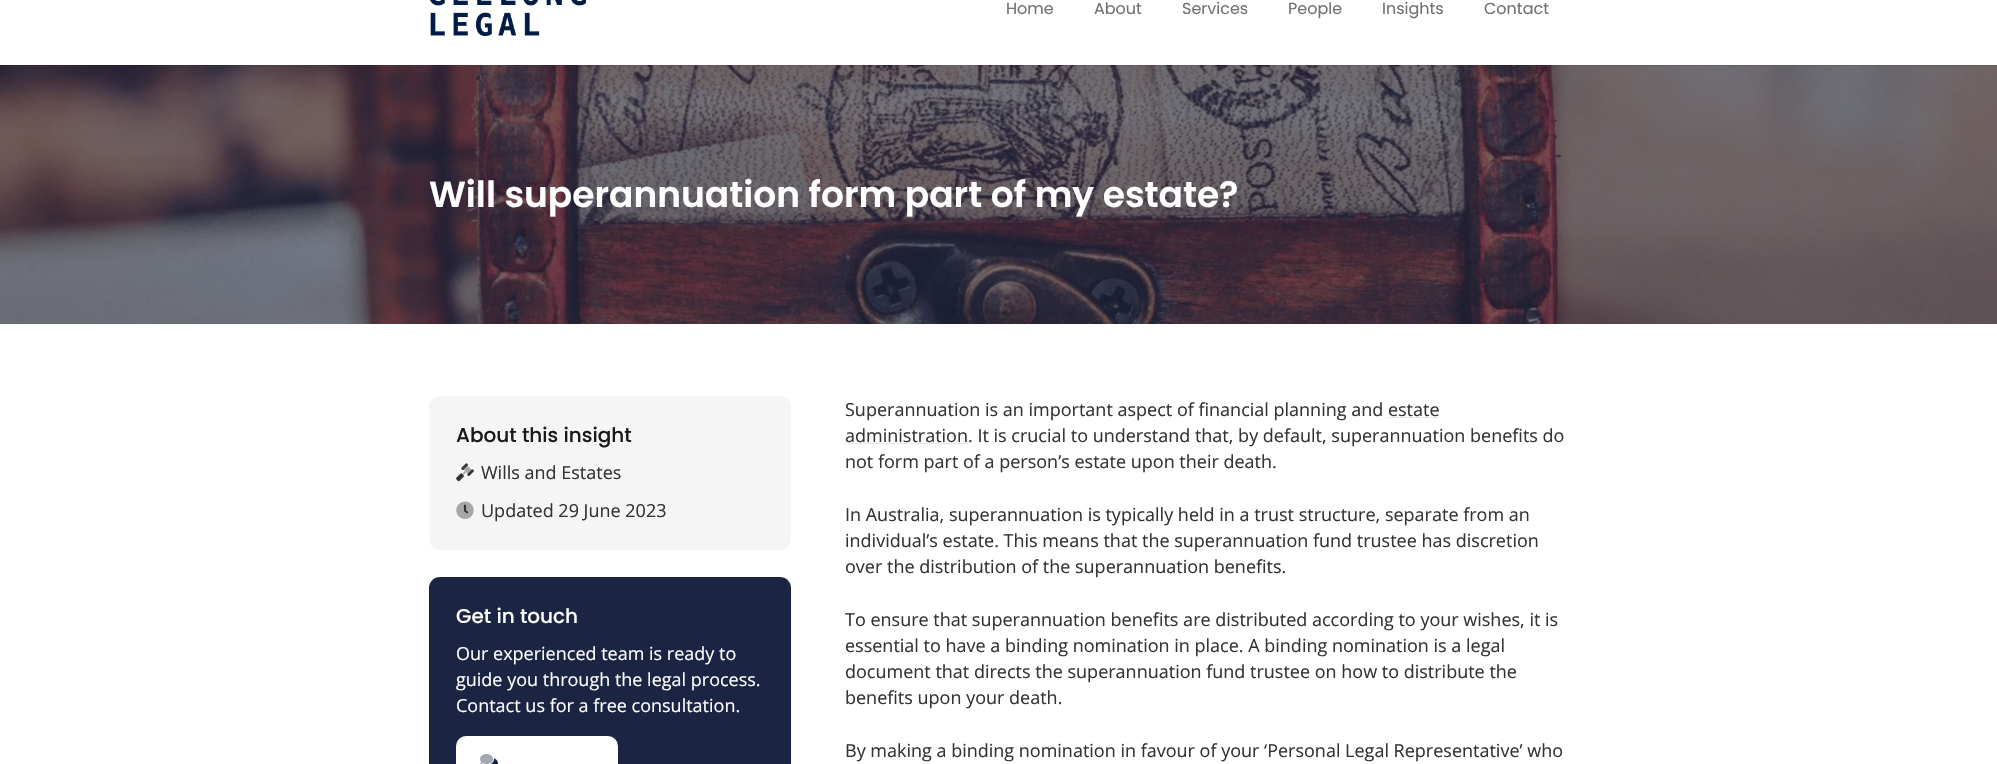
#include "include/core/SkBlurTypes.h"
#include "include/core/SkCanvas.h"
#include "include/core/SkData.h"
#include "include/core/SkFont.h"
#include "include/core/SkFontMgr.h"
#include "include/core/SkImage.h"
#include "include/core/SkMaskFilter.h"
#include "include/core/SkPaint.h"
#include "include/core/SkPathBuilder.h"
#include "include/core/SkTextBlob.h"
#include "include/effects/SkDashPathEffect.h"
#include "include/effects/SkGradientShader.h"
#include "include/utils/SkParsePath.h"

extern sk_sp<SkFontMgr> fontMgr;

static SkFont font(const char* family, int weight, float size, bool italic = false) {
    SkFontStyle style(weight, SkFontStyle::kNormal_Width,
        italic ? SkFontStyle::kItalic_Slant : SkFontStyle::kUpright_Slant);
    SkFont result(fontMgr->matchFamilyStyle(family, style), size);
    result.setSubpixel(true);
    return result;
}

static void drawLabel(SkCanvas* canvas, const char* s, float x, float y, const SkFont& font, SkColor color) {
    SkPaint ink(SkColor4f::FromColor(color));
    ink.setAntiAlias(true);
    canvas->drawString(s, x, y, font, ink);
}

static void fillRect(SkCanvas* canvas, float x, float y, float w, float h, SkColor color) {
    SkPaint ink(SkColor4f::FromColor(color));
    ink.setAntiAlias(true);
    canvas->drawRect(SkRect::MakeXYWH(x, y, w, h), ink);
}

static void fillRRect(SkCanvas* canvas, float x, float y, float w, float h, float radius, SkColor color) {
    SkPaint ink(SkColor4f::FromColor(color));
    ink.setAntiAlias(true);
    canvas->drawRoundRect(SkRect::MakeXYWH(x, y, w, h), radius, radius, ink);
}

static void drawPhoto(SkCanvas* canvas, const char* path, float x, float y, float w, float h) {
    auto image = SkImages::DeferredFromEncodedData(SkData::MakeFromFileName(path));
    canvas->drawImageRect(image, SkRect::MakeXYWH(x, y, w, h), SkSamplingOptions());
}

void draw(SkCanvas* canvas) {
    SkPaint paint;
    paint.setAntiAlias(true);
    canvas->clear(0xFFFFFFFF);
    drawPhoto(canvas, "assets/img2.png", 0, 65, 1997, 259);
    fillRect(canvas, 0, 65, 1997, 1, 0x14000000);
    drawPhoto(canvas, "assets/img1.png", 430, 0, 156, 36);
    SkFont font1 = font("Poppins", 400, 16);
    drawLabel(canvas, "Home", 1006, 14, font1, 0xFF707070);
    drawLabel(canvas, "About", 1094, 14, font1, 0xFF707070);
    drawLabel(canvas, "Services", 1182, 14, font1, 0xFF707070);
    drawLabel(canvas, "People", 1288, 14, font1, 0xFF707070);
    drawLabel(canvas, "Insights", 1382, 14, font1, 0xFF707070);
    drawLabel(canvas, "Contact", 1484, 14, font1, 0xFF707070);
    SkFont font2 = font("Poppins", 600, 36);
    drawLabel(canvas, "Will superannuation form part of my estate?", 429, 207, font2, 0xFFFFFFFF);
    fillRRect(canvas, 429, 396, 362, 154, 11, 0xFFF5F5F5);
    SkFont font3 = font("Poppins", 500, 20);
    drawLabel(canvas, "About this insight", 456, 442, font3, 0xFF1A1A1A);
    drawPhoto(canvas, "assets/img3.png", 456, 463, 18, 19);
    drawPhoto(canvas, "assets/img4.png", 462, 466, 10, 9);
    SkFont font4 = font("Open Sans", 400, 18);
    drawLabel(canvas, "Wills and Estates", 481, 479, font4, 0xFF333333);
    drawPhoto(canvas, "assets/img6.png", 463, 504, 6, 10);
    drawPhoto(canvas, "assets/img5.png", 456, 501, 18, 18);
    drawLabel(canvas, "Updated 29 June 2023", 481, 517, font4, 0xFF333333);
    fillRRect(canvas, 429, 577, 362, 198, 11, 0xFF1B2442);
    drawLabel(canvas, "Get in touch", 456, 623, font3, 0xFFFFFFFF);
    drawLabel(canvas, "Our experienced team is ready to", 456, 660, font4, 0xFFFFFFFF);
    drawLabel(canvas, "guide you through the legal process.", 456, 686, font4, 0xFFFFFFFF);
    drawLabel(canvas, "Contact us for a free consultation.", 456, 712, font4, 0xFFFFFFFF);
    fillRRect(canvas, 456, 736, 162, 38, 10, 0xFFFFFFFF);
    drawPhoto(canvas, "assets/img8.png", 490, 758, 8, 6);
    drawPhoto(canvas, "assets/img7.png", 480, 754, 13, 10);
    drawLabel(canvas, "Superannuation is an important aspect of financial planning and estate", 845, 416, font4, 0xFF333333);
    fillRect(canvas, 845, 443, 123, 1, 0xFFE8E8E8);
    drawLabel(canvas, "administration. It is crucial to understand that, by default, superannuation benefits do", 845, 442, font4, 0xFF333333);
    fillRect(canvas, 1387, 417, 52, 1, 0xFFE8E8E8);
    drawLabel(canvas, "not form part of a person’s estate upon their death.", 845, 468, font4, 0xFF333333);
    drawLabel(canvas, "In Australia, superannuation is typically held in a trust structure, separate from an", 845, 521, font4, 0xFF333333);
    drawLabel(canvas, "individual’s estate. This means that the superannuation fund trustee has discretion", 845, 547, font4, 0xFF333333);
    drawLabel(canvas, "over the distribution of the superannuation benefits.", 845, 573, font4, 0xFF333333);
    drawLabel(canvas, "To ensure that superannuation benefits are distributed according to your wishes, it is", 845, 626, font4, 0xFF333333);
    drawLabel(canvas, "essential to have a binding nomination in place. A binding nomination is a legal", 845, 652, font4, 0xFF333333);
    drawLabel(canvas, "document that directs the superannuation fund trustee on how to distribute the", 845, 678, font4, 0xFF333333);
    drawLabel(canvas, "benefits upon your death.", 845, 704, font4, 0xFF333333);
    drawLabel(canvas, "By making a binding nomination in favour of your ‘Personal Legal Representative’ who", 845, 757, font4, 0xFF333333);
}
